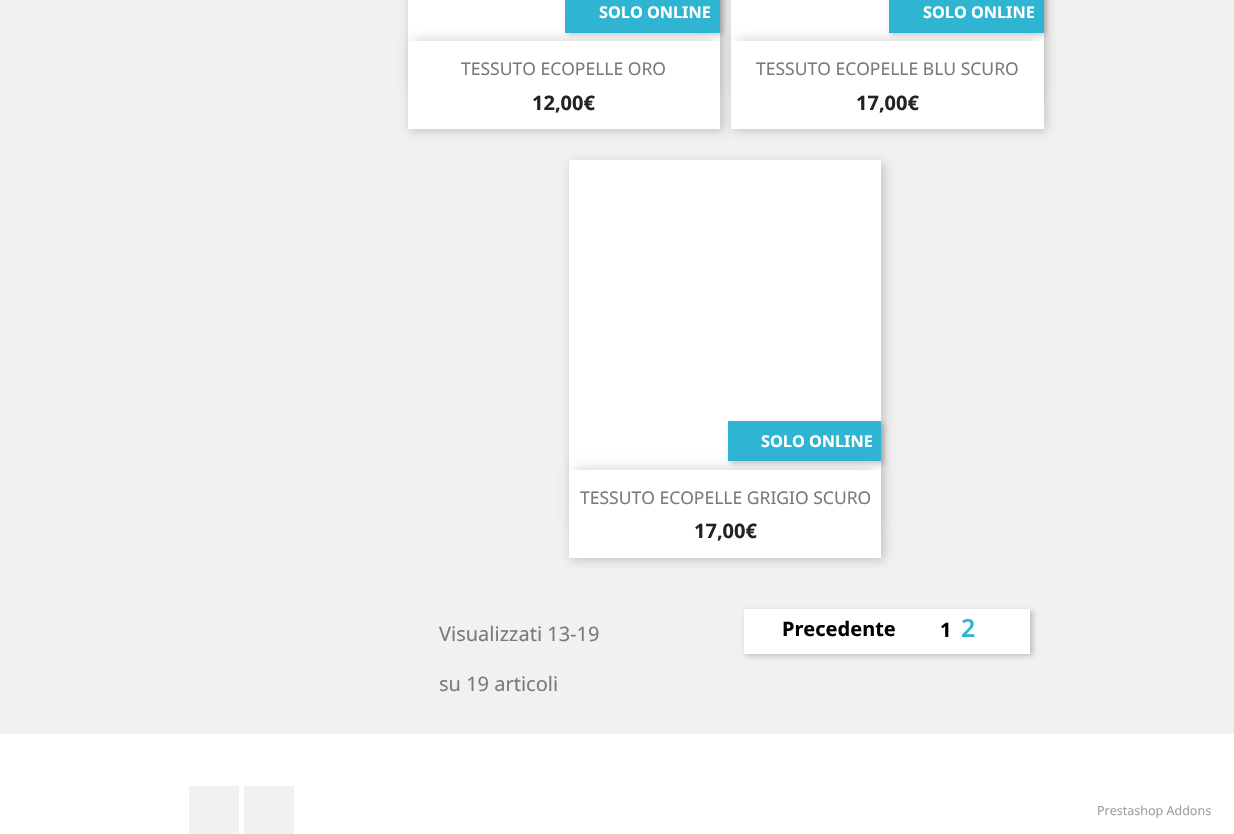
#include "include/core/SkBlurTypes.h"
#include "include/core/SkCanvas.h"
#include "include/core/SkData.h"
#include "include/core/SkFont.h"
#include "include/core/SkFontMgr.h"
#include "include/core/SkImage.h"
#include "include/core/SkMaskFilter.h"
#include "include/core/SkPaint.h"
#include "include/core/SkPathBuilder.h"
#include "include/core/SkTextBlob.h"
#include "include/effects/SkDashPathEffect.h"
#include "include/effects/SkGradientShader.h"
#include "include/utils/SkParsePath.h"

extern sk_sp<SkFontMgr> fontMgr;

static SkFont font(const char* family, int weight, float size, bool italic = false) {
    SkFontStyle style(weight, SkFontStyle::kNormal_Width,
        italic ? SkFontStyle::kItalic_Slant : SkFontStyle::kUpright_Slant);
    SkFont result(fontMgr->matchFamilyStyle(family, style), size);
    result.setSubpixel(true);
    return result;
}

static void drawLabel(SkCanvas* canvas, const char* s, float x, float y, const SkFont& font, SkColor color) {
    SkPaint ink(SkColor4f::FromColor(color));
    ink.setAntiAlias(true);
    canvas->drawString(s, x, y, font, ink);
}

static void drawTracked(SkCanvas* canvas, const char* s, float x, float y, const SkFont& font, const SkPaint& ink, float letter, float word) {
    std::vector<SkGlyphID> glyphs(font.countText(s, strlen(s), SkTextEncoding::kUTF8));
    std::vector<float> xs(glyphs.size());
    font.textToGlyphs(s, strlen(s), SkTextEncoding::kUTF8, glyphs);
    font.getXPos(glyphs, xs, x);
    float extra = 0;
    for (size_t i = 0; i < glyphs.size(); i++) {
        xs[i] += extra;
        extra += letter + word * (glyphs[i] == font.unicharToGlyph(' '));
    }
    canvas->drawTextBlob(SkTextBlob::MakeFromPosHGlyphs(glyphs, xs, y, font), 0, 0, ink);
}

static void fillRect(SkCanvas* canvas, float x, float y, float w, float h, SkColor color) {
    SkPaint ink(SkColor4f::FromColor(color));
    ink.setAntiAlias(true);
    canvas->drawRect(SkRect::MakeXYWH(x, y, w, h), ink);
}

void draw(SkCanvas* canvas) {
    SkPaint paint;
    paint.setAntiAlias(true);
    canvas->clear(0xFFFFFFFF);
    fillRect(canvas, 0, 0, 1234, 734, 0xFFF1F1F1);
    paint.setColor(0x33000000);
    paint.setMaskFilter(SkMaskFilter::MakeBlur(kNormal_SkBlurStyle, 5));
    canvas->drawRect(SkRect::MakeXYWH(410, -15, 313, 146), paint);
    paint.setMaskFilter(nullptr);
    fillRect(canvas, 408, 0, 312, 41, 0xFFFFFFFF);
    paint.setMaskFilter(SkMaskFilter::MakeBlur(kNormal_SkBlurStyle, 5));
    canvas->drawRect(SkRect::MakeXYWH(734, -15, 312, 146), paint);
    paint.setMaskFilter(nullptr);
    fillRect(canvas, 731, 0, 313, 41, 0xFFFFFFFF);
    paint.setMaskFilter(SkMaskFilter::MakeBlur(kNormal_SkBlurStyle, 2.5f));
    canvas->drawRect(SkRect::MakeXYWH(568, -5, 155, 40), paint);
    paint.setMaskFilter(nullptr);
    fillRect(canvas, 565, 0, 155, 33, 0xFF2FB5D2);
    SkFont font1 = font("Noto Sans", 700, 16.25f);
    drawLabel(canvas, "SOLO ONLINE", 599, 18, font1, 0xFFFFFFFF);
    paint.setMaskFilter(SkMaskFilter::MakeBlur(kNormal_SkBlurStyle, 6));
    canvas->drawRect(SkRect::MakeXYWH(414, 41, 300, 50), paint);
    paint.setMaskFilter(nullptr);
    paint.setMaskFilter(SkMaskFilter::MakeBlur(kNormal_SkBlurStyle, 2.5f));
    canvas->drawRect(SkRect::MakeXYWH(891, -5, 155, 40), paint);
    paint.setMaskFilter(nullptr);
    fillRect(canvas, 889, 0, 155, 33, 0xFF2FB5D2);
    paint.setMaskFilter(SkMaskFilter::MakeBlur(kNormal_SkBlurStyle, 6));
    canvas->drawRect(SkRect::MakeXYWH(738, 41, 300, 50), paint);
    paint.setMaskFilter(nullptr);
    fillRect(canvas, 408, 41, 312, 88, 0xFFFFFFFF);
    SkFont font2 = font("Noto Sans", 400, 17.5f);
    drawLabel(canvas, "TESSUTO ECOPELLE ORO", 461, 75, font2, 0xFF7A7A7A);
    SkFont font3 = font("Noto Sans", 700, 20);
    drawLabel(canvas, "12,00€", 532, 110, font3, 0xFF232323);
    drawLabel(canvas, "SOLO ONLINE", 923, 18, font1, 0xFFFFFFFF);
    fillRect(canvas, 731, 41, 313, 88, 0xFFFFFFFF);
    drawLabel(canvas, "TESSUTO ECOPELLE BLU SCURO", 756, 75, font2, 0xFF7A7A7A);
    drawLabel(canvas, "17,00€", 856, 110, font3, 0xFF232323);
    paint.setMaskFilter(SkMaskFilter::MakeBlur(kNormal_SkBlurStyle, 5));
    canvas->drawRect(SkRect::MakeXYWH(571, 163, 313, 397), paint);
    paint.setMaskFilter(nullptr);
    fillRect(canvas, 569, 160, 312, 310, 0xFFFFFFFF);
    paint.setMaskFilter(SkMaskFilter::MakeBlur(kNormal_SkBlurStyle, 2.5f));
    canvas->drawRect(SkRect::MakeXYWH(730, 424, 154, 40), paint);
    paint.setMaskFilter(nullptr);
    fillRect(canvas, 728, 421, 153, 40, 0xFF2FB5D2);
    drawLabel(canvas, "SOLO ONLINE", 761, 447, font1, 0xFFFFFFFF);
    paint.setMaskFilter(SkMaskFilter::MakeBlur(kNormal_SkBlurStyle, 6));
    canvas->drawRect(SkRect::MakeXYWH(575, 470, 300, 50), paint);
    paint.setMaskFilter(nullptr);
    fillRect(canvas, 569, 470, 312, 88, 0xFFFFFFFF);
    drawLabel(canvas, "TESSUTO ECOPELLE GRIGIO SCURO", 580, 504, font2, 0xFF7A7A7A);
    drawLabel(canvas, "17,00€", 694, 538, font3, 0xFF232323);
    SkFont font4 = font("Noto Sans", 400, 20);
    drawLabel(canvas, "Visualizzati 13-19", 439, 641, font4, 0xFF7A7A7A);
    drawLabel(canvas, "su 19 articoli", 439, 691, font4, 0xFF7A7A7A);
    paint.setMaskFilter(SkMaskFilter::MakeBlur(kNormal_SkBlurStyle, 2.5f));
    canvas->drawRect(SkRect::MakeXYWH(746, 611, 287, 45), paint);
    paint.setMaskFilter(nullptr);
    fillRect(canvas, 744, 609, 286, 45, 0xFFFFFFFF);
    drawLabel(canvas, "Precedente", 782, 636, font3, 0xFF000000);
    paint.setColor(0xFF000000);
    drawTracked(canvas, "1", 940, 637, font3, paint, 2, 0);
    SkFont font5 = font("Noto Sans", 600, 25);
    paint.setColor(0xFF2FB5D2);
    drawTracked(canvas, "2", 961, 637, font5, paint, 2, 0);
    fillRect(canvas, 189, 786, 50, 48, 0xFFF1F1F1);
    fillRect(canvas, 244, 786, 50, 48, 0xFFF1F1F1);
    SkFont font6 = font("Noto Sans", 400, 12.5f);
    drawLabel(canvas, "Prestashop Addons", 1097, 815, font6, 0xFFA0A0A0);
}
